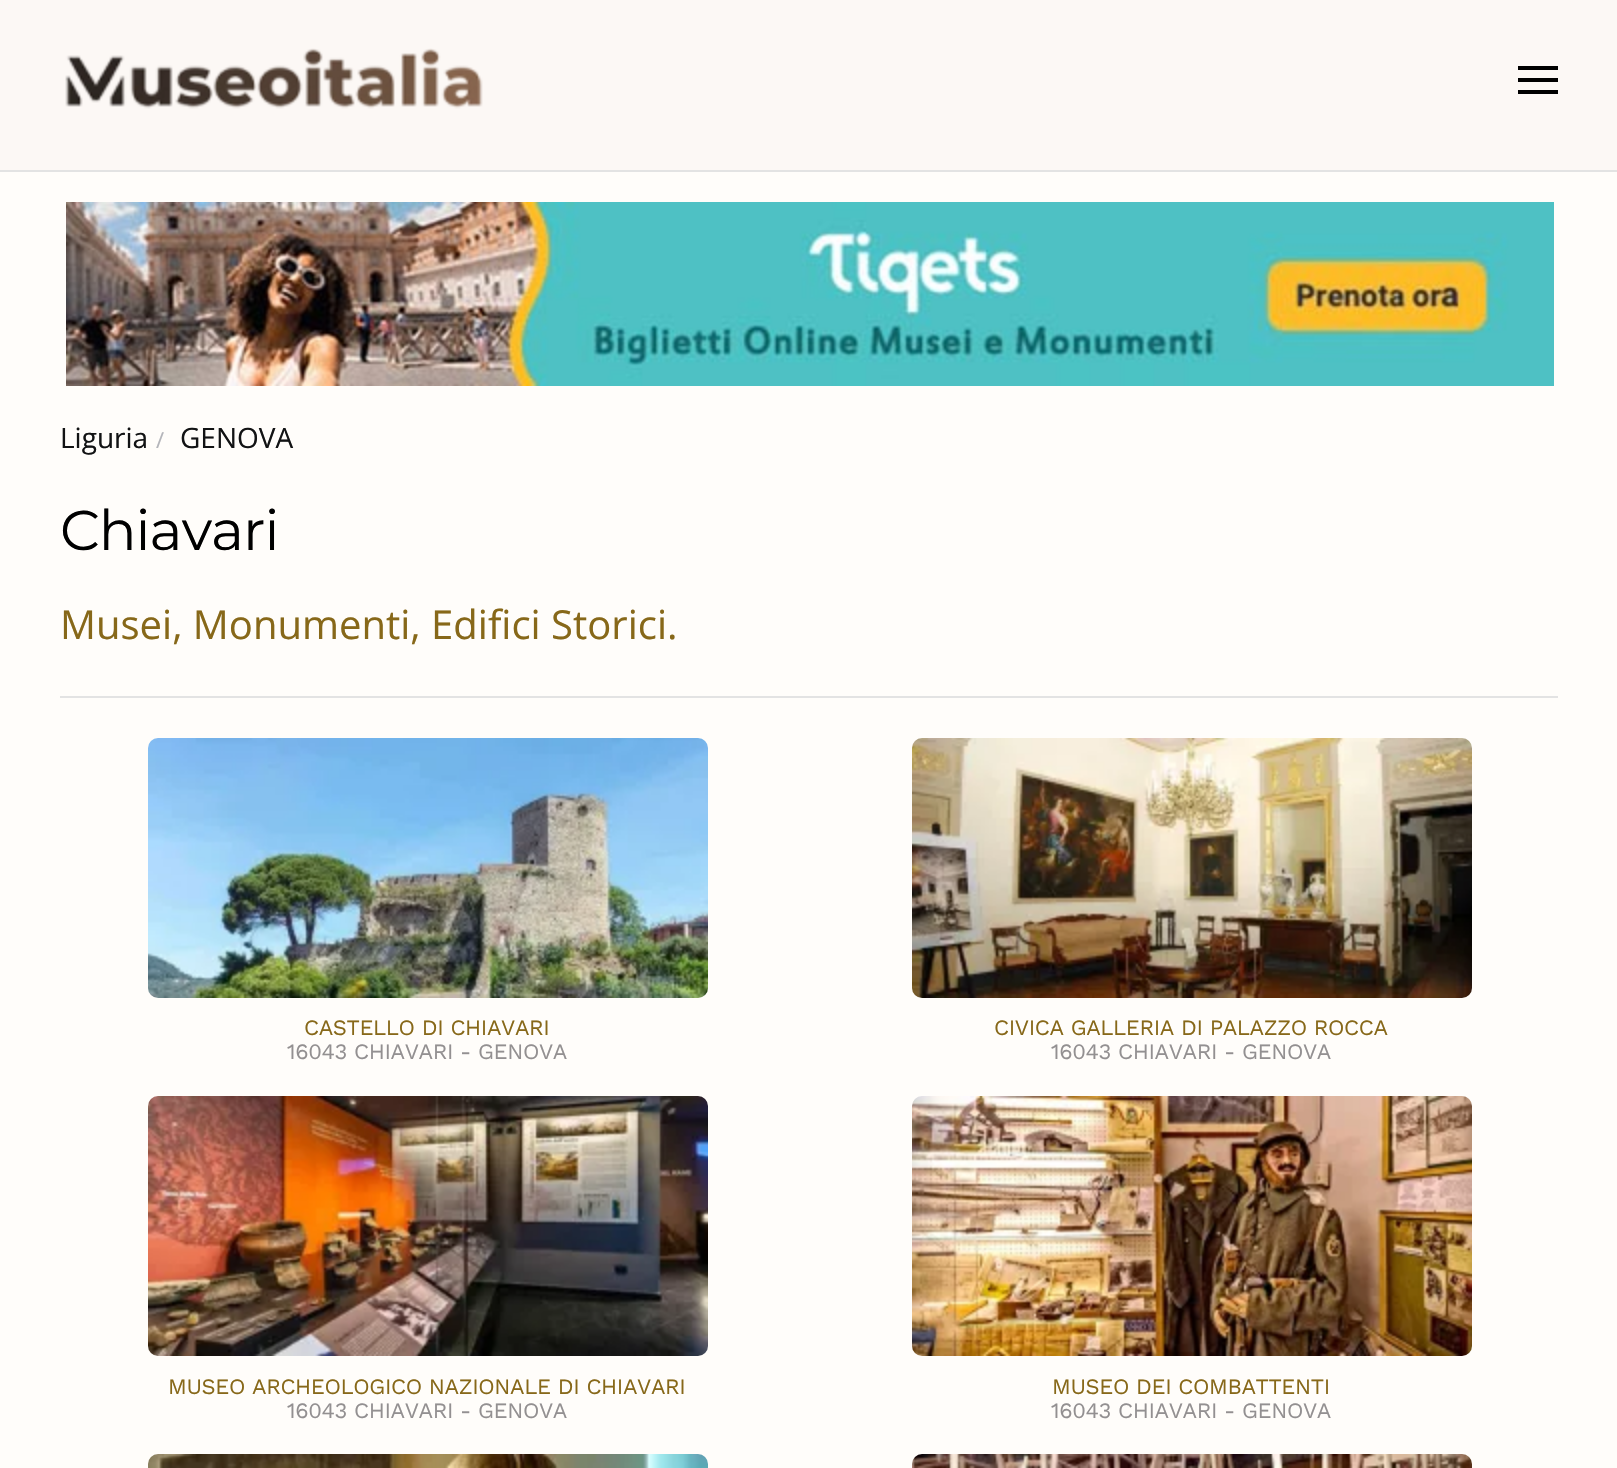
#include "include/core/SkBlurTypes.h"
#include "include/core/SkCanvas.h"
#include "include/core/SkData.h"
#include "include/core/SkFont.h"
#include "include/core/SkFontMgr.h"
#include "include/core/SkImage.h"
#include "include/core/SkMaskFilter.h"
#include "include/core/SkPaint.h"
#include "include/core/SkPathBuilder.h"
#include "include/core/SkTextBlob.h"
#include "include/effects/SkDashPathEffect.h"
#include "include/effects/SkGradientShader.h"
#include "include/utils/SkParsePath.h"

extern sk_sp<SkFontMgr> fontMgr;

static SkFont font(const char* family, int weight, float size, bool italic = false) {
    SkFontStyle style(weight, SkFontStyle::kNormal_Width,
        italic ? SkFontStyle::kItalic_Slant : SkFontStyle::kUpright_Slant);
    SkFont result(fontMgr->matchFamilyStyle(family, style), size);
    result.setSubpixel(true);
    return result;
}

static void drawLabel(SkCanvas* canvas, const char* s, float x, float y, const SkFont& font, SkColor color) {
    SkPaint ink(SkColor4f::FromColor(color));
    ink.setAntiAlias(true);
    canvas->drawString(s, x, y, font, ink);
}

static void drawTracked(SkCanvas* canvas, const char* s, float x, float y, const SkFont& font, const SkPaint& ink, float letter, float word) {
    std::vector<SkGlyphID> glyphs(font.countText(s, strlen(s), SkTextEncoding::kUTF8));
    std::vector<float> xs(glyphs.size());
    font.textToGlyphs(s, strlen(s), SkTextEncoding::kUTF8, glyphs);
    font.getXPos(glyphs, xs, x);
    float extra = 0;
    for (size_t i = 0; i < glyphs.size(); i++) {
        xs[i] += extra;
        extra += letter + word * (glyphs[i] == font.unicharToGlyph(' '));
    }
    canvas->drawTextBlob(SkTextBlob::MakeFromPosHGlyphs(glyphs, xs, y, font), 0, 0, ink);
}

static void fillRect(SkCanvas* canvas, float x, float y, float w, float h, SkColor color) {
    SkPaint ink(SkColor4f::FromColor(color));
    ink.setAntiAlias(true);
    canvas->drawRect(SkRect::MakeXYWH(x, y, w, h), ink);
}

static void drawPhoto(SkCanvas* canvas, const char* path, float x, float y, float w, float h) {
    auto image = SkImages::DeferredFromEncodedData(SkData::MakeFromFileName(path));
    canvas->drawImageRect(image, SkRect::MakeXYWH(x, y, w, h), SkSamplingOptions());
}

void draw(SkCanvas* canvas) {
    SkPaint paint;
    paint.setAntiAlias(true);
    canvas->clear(0xFFFFFDFA);
    fillRect(canvas, 0, 0, 1617, 170, 0xFFFCF8F5);
    fillRect(canvas, 0, 170, 1617, 2, 0xFFE3E3E3);
    drawPhoto(canvas, "assets/img1.png", 65, 48, 418, 61);
    fillRect(canvas, 1518, 66, 40, 4, 0xFF000000);
    fillRect(canvas, 1518, 78, 40, 4, 0xFF000000);
    fillRect(canvas, 1518, 90, 40, 4, 0xFF000000);
    drawPhoto(canvas, "assets/img2.png", 66, 202, 1488, 184);
    SkFont font1 = font("Open Sans", 400, 28);
    drawLabel(canvas, "Liguria", 60, 448, font1, 0xFF121314);
    SkFont font2 = font("Open Sans", 400, 22);
    drawLabel(canvas, "/", 156, 448, font2, 0xFFB4B5BA);
    drawLabel(canvas, "GENOVA", 180, 448, font1, 0xFF121314);
    SkFont font3 = font("Montserrat", 400, 56);
    paint.setColor(0xFF000000);
    drawTracked(canvas, "Chiavari", 60, 550, font3, paint, -1, 0);
    SkFont font4 = font("Open Sans", 400, 40);
    drawLabel(canvas, "Musei, Monumenti, Edifici Storici.", 60, 639, font4, 0xFF876819);
    fillRect(canvas, 60, 696, 1498, 2, 0xFFE3E3E3);
    drawPhoto(canvas, "assets/img3.png", 148, 738, 560, 260);
    SkFont font5 = font("Work Sans", 400, 22);
    paint.setColor(0xFF876819);
    drawTracked(canvas, "CASTELLO DI CHIAVARI", 304, 1035, font5, paint, -0.4f, 0);
    paint.setColor(0xFF939091);
    drawTracked(canvas, "16043 CHIAVARI - GENOVA", 287, 1059, font5, paint, -0.4f, 0);
    drawPhoto(canvas, "assets/img4.png", 912, 738, 560, 260);
    paint.setColor(0xFF876819);
    drawTracked(canvas, "CIVICA GALLERIA DI PALAZZO ROCCA", 994, 1035, font5, paint, -0.4f, 0);
    paint.setColor(0xFF939091);
    drawTracked(canvas, "16043 CHIAVARI - GENOVA", 1051, 1059, font5, paint, -0.4f, 0);
    drawPhoto(canvas, "assets/img5.png", 148, 1096, 560, 260);
    paint.setColor(0xFF876819);
    drawTracked(canvas, "MUSEO ARCHEOLOGICO NAZIONALE DI CHIAVARI", 168, 1394, font5, paint, -0.4f, 0);
    paint.setColor(0xFF939091);
    drawTracked(canvas, "16043 CHIAVARI - GENOVA", 287, 1418, font5, paint, -0.4f, 0);
    drawPhoto(canvas, "assets/img6.png", 912, 1096, 560, 260);
    paint.setColor(0xFF876819);
    drawTracked(canvas, "MUSEO DEI COMBATTENTI", 1052, 1394, font5, paint, -0.4f, 0);
    paint.setColor(0xFF939091);
    drawTracked(canvas, "16043 CHIAVARI - GENOVA", 1051, 1418, font5, paint, -0.4f, 0);
    drawPhoto(canvas, "assets/img7.png", 148, 1454, 560, 14);
    drawPhoto(canvas, "assets/img8.png", 912, 1454, 560, 14);
}
